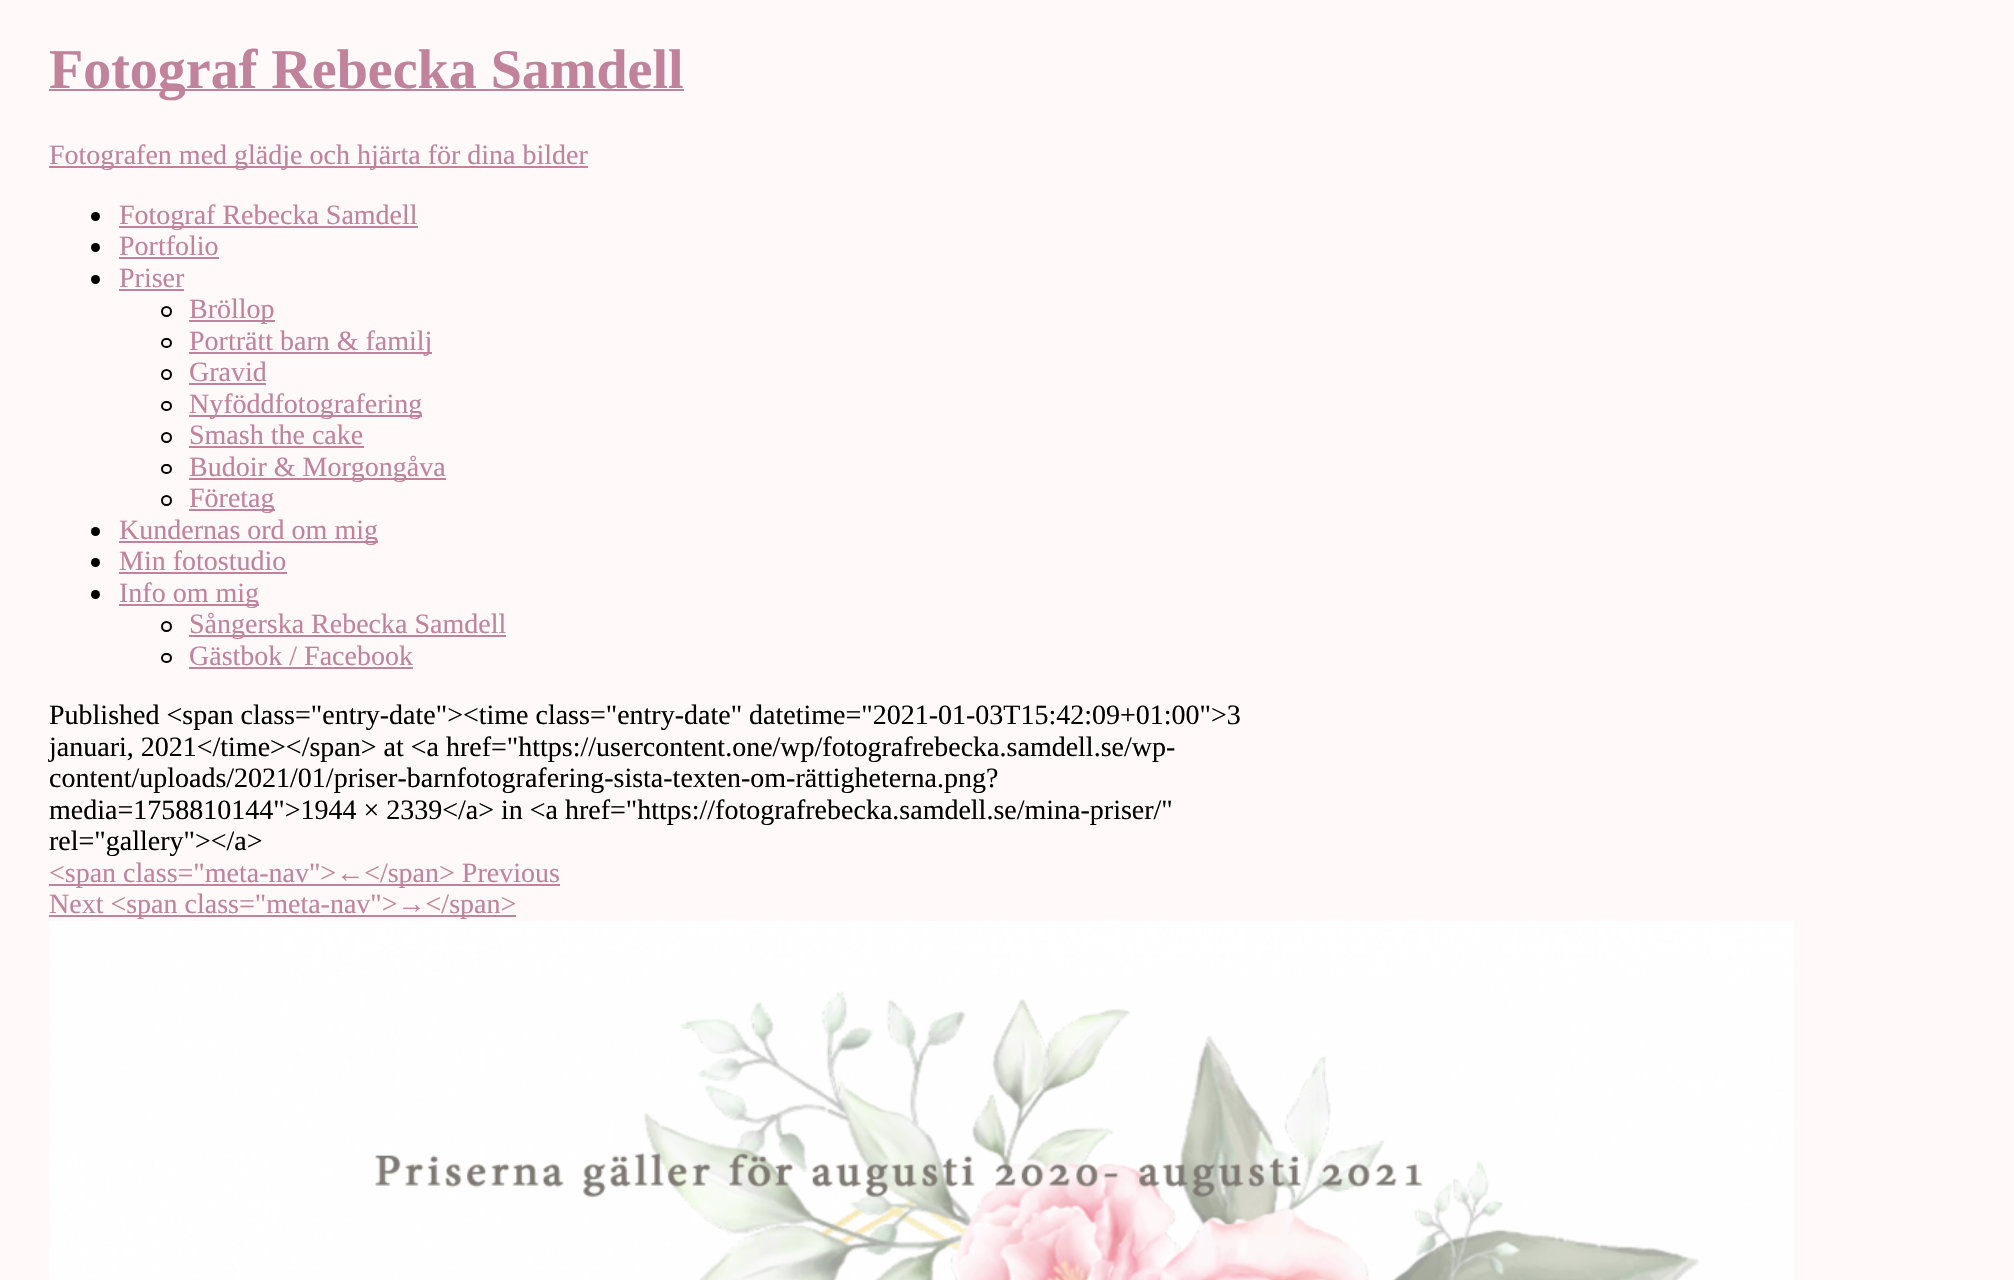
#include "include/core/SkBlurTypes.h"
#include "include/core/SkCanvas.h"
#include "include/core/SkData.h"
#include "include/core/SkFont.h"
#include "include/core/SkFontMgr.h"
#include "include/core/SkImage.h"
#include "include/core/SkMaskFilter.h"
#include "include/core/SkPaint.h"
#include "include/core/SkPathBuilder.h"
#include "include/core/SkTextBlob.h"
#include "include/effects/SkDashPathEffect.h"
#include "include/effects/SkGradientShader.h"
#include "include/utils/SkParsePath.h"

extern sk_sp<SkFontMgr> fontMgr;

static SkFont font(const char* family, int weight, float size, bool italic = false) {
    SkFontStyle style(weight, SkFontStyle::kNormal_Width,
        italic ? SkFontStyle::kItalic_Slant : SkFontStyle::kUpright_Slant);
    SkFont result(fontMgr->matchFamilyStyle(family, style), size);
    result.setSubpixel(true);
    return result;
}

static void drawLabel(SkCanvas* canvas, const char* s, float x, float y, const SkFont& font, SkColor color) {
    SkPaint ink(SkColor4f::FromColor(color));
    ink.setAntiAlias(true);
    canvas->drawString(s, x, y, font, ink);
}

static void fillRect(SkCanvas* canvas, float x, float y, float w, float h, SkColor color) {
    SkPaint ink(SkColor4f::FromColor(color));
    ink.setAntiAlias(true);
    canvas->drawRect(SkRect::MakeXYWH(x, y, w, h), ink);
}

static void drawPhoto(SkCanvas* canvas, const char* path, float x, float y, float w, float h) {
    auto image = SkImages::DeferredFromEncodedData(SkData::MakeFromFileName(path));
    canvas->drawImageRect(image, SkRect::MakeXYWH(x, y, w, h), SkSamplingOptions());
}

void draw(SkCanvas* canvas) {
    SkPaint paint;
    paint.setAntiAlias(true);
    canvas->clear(0xFFFFF9F9);
    fillRect(canvas, 49, 89, 635, 2, 0xFFC1839B);
    SkFont font1 = font("Liberation Serif", 700, 56);
    drawLabel(canvas, "Fotograf Rebecka Samdell", 49, 88, font1, 0xFFC1839B);
    fillRect(canvas, 49, 166, 539, 2, 0xFFC1839B);
    SkFont font2 = font("Liberation Serif", 400, 28);
    drawLabel(canvas, "Fotografen med glädje och hjärta för dina bilder", 49, 164, font2, 0xFFC1839B);
    paint.setColor(0xFF000000);
    canvas->drawCircle(95.5f, 216.5f, 4.5f, paint);
    fillRect(canvas, 119, 226, 299, 2, 0xFFC1839B);
    drawLabel(canvas, "Fotograf Rebecka Samdell", 119, 224, font2, 0xFFC1839B);
    canvas->drawCircle(95.5f, 247.5f, 4.5f, paint);
    drawLabel(canvas, "Portfolio", 119, 255, font2, 0xFFC1839B);
    fillRect(canvas, 119, 257, 100, 2, 0xFFC1839B);
    canvas->drawCircle(95.5f, 279.5f, 4.5f, paint);
    drawLabel(canvas, "Priser", 119, 287, font2, 0xFFC1839B);
    fillRect(canvas, 119, 289, 65, 2, 0xFFC1839B);
    paint.setStroke(true);
    paint.setStrokeWidth(2);
    canvas->drawCircle(166.5f, 311.5f, 4.5f, paint);
    fillRect(canvas, 189, 320, 86, 2, 0xFFC1839B);
    drawLabel(canvas, "Bröllop", 189, 318, font2, 0xFFC1839B);
    canvas->drawRoundRect(SkRect::MakeXYWH(162, 339, 9, 8), 4, 4, paint);
    fillRect(canvas, 189, 352, 243, 2, 0xFFC1839B);
    drawLabel(canvas, "Porträtt barn & familj", 189, 350, font2, 0xFFC1839B);
    canvas->drawCircle(166.5f, 374.5f, 4.5f, paint);
    drawLabel(canvas, "Gravid", 189, 381, font2, 0xFFC1839B);
    fillRect(canvas, 189, 383, 77, 2, 0xFFC1839B);
    canvas->drawRoundRect(SkRect::MakeXYWH(162, 402, 9, 8), 4, 4, paint);
    fillRect(canvas, 189, 415, 233, 2, 0xFFC1839B);
    drawLabel(canvas, "Nyföddfotografering", 189, 413, font2, 0xFFC1839B);
    canvas->drawCircle(166.5f, 437.5f, 4.5f, paint);
    drawLabel(canvas, "Smash the cake", 189, 444, font2, 0xFFC1839B);
    fillRect(canvas, 189, 446, 175, 2, 0xFFC1839B);
    canvas->drawRoundRect(SkRect::MakeXYWH(162, 465, 9, 8), 4, 4, paint);
    fillRect(canvas, 189, 478, 257, 2, 0xFFC1839B);
    drawLabel(canvas, "Budoir & Morgongåva", 189, 476, font2, 0xFFC1839B);
    canvas->drawCircle(166.5f, 500.5f, 4.5f, paint);
    fillRect(canvas, 189, 509, 86, 2, 0xFFC1839B);
    drawLabel(canvas, "Företag", 189, 507, font2, 0xFFC1839B);
    paint.setStroke(false);
    canvas->drawCircle(95.5f, 531.5f, 4.5f, paint);
    fillRect(canvas, 119, 541, 259, 2, 0xFFC1839B);
    drawLabel(canvas, "Kundernas ord om mig", 119, 539, font2, 0xFFC1839B);
    canvas->drawCircle(95.5f, 562.5f, 4.5f, paint);
    drawLabel(canvas, "Min fotostudio", 119, 570, font2, 0xFFC1839B);
    fillRect(canvas, 119, 572, 168, 2, 0xFFC1839B);
    canvas->drawCircle(95.5f, 594.5f, 4.5f, paint);
    fillRect(canvas, 119, 604, 140, 2, 0xFFC1839B);
    drawLabel(canvas, "Info om mig", 119, 602, font2, 0xFFC1839B);
    paint.setStroke(true);
    canvas->drawCircle(166.5f, 626.5f, 4.5f, paint);
    fillRect(canvas, 189, 635, 317, 2, 0xFFC1839B);
    drawLabel(canvas, "Sångerska Rebecka Samdell", 189, 633, font2, 0xFFC1839B);
    canvas->drawRoundRect(SkRect::MakeXYWH(162, 654, 9, 8), 4, 4, paint);
    drawLabel(canvas, "Gästbok / Facebook", 189, 665, font2, 0xFFC1839B);
    fillRect(canvas, 189, 667, 224, 2, 0xFFC1839B);
    drawLabel(canvas, "Published <span class=\"entry-date\"><time class=\"entry-date\" datetime=\"2021-01-03T15:42:09+01:00\">3", 49, 724, font2, 0xFF000000);
    drawLabel(canvas, "januari, 2021</time></span> at <a href=\"https://usercontent.one/wp/fotografrebecka.samdell.se/wp-", 49, 756, font2, 0xFF000000);
    drawLabel(canvas, "content/uploads/2021/01/priser-barnfotografering-sista-texten-om-rättigheterna.png?", 49, 787, font2, 0xFF000000);
    drawLabel(canvas, "media=1758810144\">1944 × 2339</a> in <a href=\"https://fotografrebecka.samdell.se/mina-priser/\"", 49, 819, font2, 0xFF000000);
    drawLabel(canvas, "rel=\"gallery\"></a>", 49, 850, font2, 0xFF000000);
    fillRect(canvas, 49, 884, 511, 2, 0xFFC1839B);
    drawLabel(canvas, "<span class=\"meta-nav\">←</span> Previous", 49, 882, font2, 0xFFC1839B);
    fillRect(canvas, 49, 915, 467, 2, 0xFFC1839B);
    drawLabel(canvas, "Next <span class=\"meta-nav\">→</span>", 49, 913, font2, 0xFFC1839B);
    drawPhoto(canvas, "assets/img1.png", 49, 921, 1745, 359);
}
